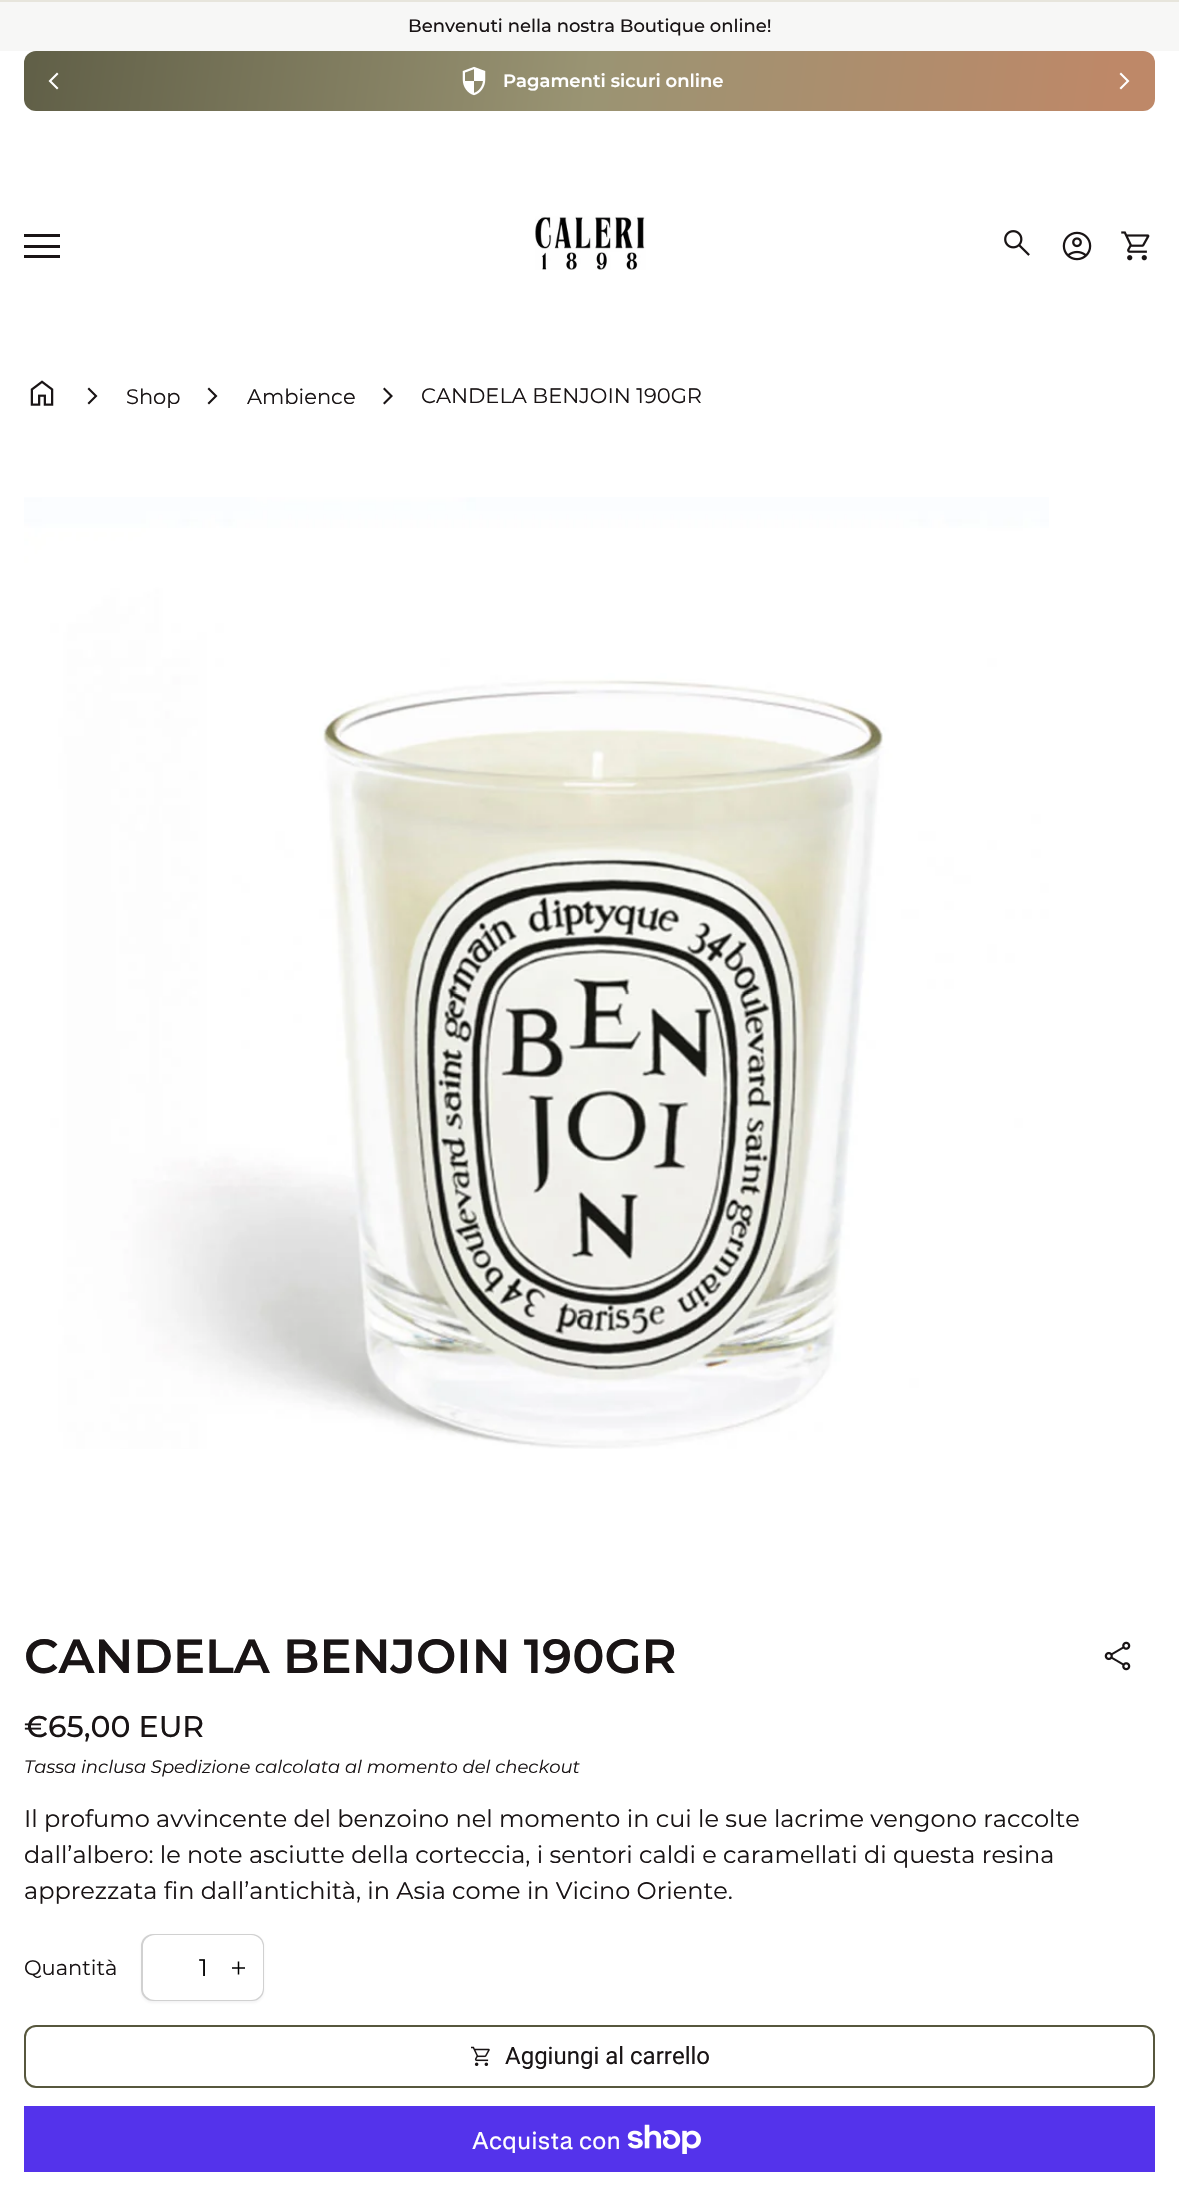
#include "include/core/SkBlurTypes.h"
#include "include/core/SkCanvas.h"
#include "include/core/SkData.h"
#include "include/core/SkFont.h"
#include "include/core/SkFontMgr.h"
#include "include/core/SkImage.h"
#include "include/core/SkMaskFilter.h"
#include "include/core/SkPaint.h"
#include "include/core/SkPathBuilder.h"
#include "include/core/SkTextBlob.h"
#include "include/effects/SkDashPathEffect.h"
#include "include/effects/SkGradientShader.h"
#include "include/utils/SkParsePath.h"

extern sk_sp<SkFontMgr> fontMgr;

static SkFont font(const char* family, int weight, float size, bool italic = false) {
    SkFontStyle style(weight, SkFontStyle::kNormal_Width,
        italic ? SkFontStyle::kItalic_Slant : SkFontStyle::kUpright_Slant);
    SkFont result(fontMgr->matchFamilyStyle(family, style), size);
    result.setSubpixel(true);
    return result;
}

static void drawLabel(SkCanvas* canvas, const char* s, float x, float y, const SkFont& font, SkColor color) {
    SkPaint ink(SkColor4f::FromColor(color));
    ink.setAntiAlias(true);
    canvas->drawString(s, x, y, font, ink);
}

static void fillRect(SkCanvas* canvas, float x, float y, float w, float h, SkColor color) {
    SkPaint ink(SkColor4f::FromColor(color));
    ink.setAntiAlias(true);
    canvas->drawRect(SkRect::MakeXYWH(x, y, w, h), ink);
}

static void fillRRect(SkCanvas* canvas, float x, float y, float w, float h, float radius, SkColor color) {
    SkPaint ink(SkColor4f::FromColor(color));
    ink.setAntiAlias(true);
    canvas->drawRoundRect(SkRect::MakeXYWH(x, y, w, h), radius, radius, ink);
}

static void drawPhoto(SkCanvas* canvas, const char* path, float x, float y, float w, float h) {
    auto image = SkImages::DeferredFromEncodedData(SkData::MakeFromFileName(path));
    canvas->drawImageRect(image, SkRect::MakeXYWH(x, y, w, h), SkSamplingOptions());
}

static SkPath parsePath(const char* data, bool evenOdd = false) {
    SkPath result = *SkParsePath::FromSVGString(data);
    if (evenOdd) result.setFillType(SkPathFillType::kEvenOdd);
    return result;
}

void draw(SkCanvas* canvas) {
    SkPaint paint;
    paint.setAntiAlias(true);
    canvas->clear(0xFFFFFFFF);
    fillRect(canvas, 0, 2, 1179, 49, 0xFFF7F7F6);
    fillRect(canvas, 0, 0, 1179, 2, 0xFFE7E5DC);
    SkFont font1 = font("Montserrat", 500, 18);
    drawLabel(canvas, "Benvenuti nella nostra Boutique online!", 408, 32, font1, 0xFF191415);
    {
        const SkColor colors[] = {0xFFBE8868, 0xFF9A9473, 0xFF605F47};
        const float stops[] = {0.04f, 0.5f, 1};
        const SkPoint ends[] = {{1148, 160}, {31, 2.5f}};
        paint.setShader(SkGradientShader::MakeLinear(ends, colors, stops, 3, SkTileMode::kClamp));
        paint.setAlpha(255);
    }
    canvas->drawRoundRect(SkRect::MakeXYWH(24, 51, 1131, 60), 12, 12, paint);
    paint.setShader(nullptr);
    paint.setColor(0xFFFFFFFF);
    canvas->drawPath(parsePath("M57 89.5L48.5 81L57 72.5L58.5 74L51.5 81L58.5 88Z"), paint);
    drawPhoto(canvas, "assets/img1.png", 462, 66, 24, 30);
    SkFont font2 = font("Montserrat", 600, 18);
    drawLabel(canvas, "Pagamenti sicuri online", 503, 87, font2, 0xFFFFFFFF);
    canvas->drawPath(parsePath("M1126.5 81L1119.5 74L1121 72.5L1129.5 81L1121 89.5L1119.5 88Z"), paint);
    fillRect(canvas, 24, 234, 36, 3, 0xFF191415);
    fillRect(canvas, 24, 245, 36, 3, 0xFF191415);
    fillRect(canvas, 24, 255, 36, 3, 0xFF191415);
    drawPhoto(canvas, "assets/img2.png", 535, 216, 111, 54);
    drawPhoto(canvas, "assets/img3.png", 1004, 230, 26, 26);
    drawPhoto(canvas, "assets/img4.png", 1062, 231, 30, 30);
    drawPhoto(canvas, "assets/img5.png", 1121, 231, 29, 30);
    drawPhoto(canvas, "assets/img6.png", 30, 380, 24, 26);
    paint.setColor(0xFF191415);
    canvas->drawPath(parsePath("M94.5 396L87.5 389L89 387.5L97.5 396L89 404.5L87.5 403Z"), paint);
    SkFont font3 = font("Montserrat", 400, 21);
    drawLabel(canvas, "Shop", 126, 404, font3, 0xFF191415);
    canvas->drawPath(parsePath("M214.5 396L207.5 389L209 387.5L217.5 396L209 404.5L207.5 403Z"), paint);
    drawLabel(canvas, "Ambience", 247, 404, font3, 0xFF191415);
    canvas->drawPath(parsePath("M390 396L383 389L384.5 387.5L393 396L384.5 404.5L383 403Z"), paint);
    drawLabel(canvas, "CANDELA BENJOIN 190GR", 421, 403, font3, 0xFF191415);
    drawPhoto(canvas, "assets/img7.png", 24, 497, 1025, 952);
    SkFont font4 = font("Montserrat", 600, 48);
    drawLabel(canvas, "CANDELA BENJOIN 190GR", 24, 1673, font4, 0xFF191415);
    drawPhoto(canvas, "assets/img8.png", 1104, 1641, 27, 30);
    SkFont font5 = font("Montserrat", 500, 30);
    drawLabel(canvas, "€65,00 EUR", 24, 1737, font5, 0xFF191415);
    SkFont font6 = font("Montserrat", 400, 18, true);
    drawLabel(canvas, "Tassa inclusa Spedizione", 24, 1773, font6, 0xFF191415);
    drawLabel(canvas, "calcolata al momento del checkout", 255, 1773, font6, 0xFF191415);
    SkFont font7 = font("Montserrat", 400, 24);
    drawLabel(canvas, "Il profumo avvincente del benzoino nel momento in cui le sue lacrime vengono raccolte", 24, 1827, font7, 0xFF191415);
    drawLabel(canvas, "dall’albero: le note asciutte della corteccia, i sentori caldi e caramellati di questa resina", 24, 1863, font7, 0xFF191415);
    drawLabel(canvas, "apprezzata fin dall’antichità, in Asia come in Vicino Oriente.", 24, 1899, font7, 0xFF191415);
    drawLabel(canvas, "Quantità", 24, 1975, font3, 0xFF191415);
    paint.setColor(0x0D101828);
    paint.setMaskFilter(SkMaskFilter::MakeBlur(kNormal_SkBlurStyle, 1.5f));
    canvas->drawRoundRect(SkRect::MakeXYWH(141, 1935, 123, 68), 12, 12, paint);
    paint.setMaskFilter(nullptr);
    paint.setColor(0xFFFFFFFF);
    canvas->drawRoundRect(SkRect::MakeXYWH(142, 1935, 121, 65), 11, 11, paint);
    paint.setStroke(true);
    paint.setStrokeWidth(2);
    paint.setColor(0xFFD1D1D1);
    canvas->drawRoundRect(SkRect::MakeXYWH(142, 1935, 121, 65), 11, 11, paint);
    fillRRect(canvas, 143, 1935, 120, 65, 12, 0xFFFFFFFF);
    drawLabel(canvas, "1", 199, 1976, font7, 0xFF000000);
    drawPhoto(canvas, "assets/img9.png", 232, 1961, 13, 14);
    paint.setColor(0xFF57573D);
    canvas->drawRoundRect(SkRect::MakeXYWH(25, 2026, 1129, 61), 11, 11, paint);
    drawPhoto(canvas, "assets/img10.png", 471, 2046, 19, 20);
    SkFont font8 = font("Roboto", 400, 24);
    drawLabel(canvas, "Aggiungi al carrello", 505, 2064, font8, 0xFF191415);
    fillRect(canvas, 24, 2106, 1131, 66, 0xFF5433EB);
    SkFont font9 = font("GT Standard", 400, 24);
    drawLabel(canvas, "Acquista con", 472, 2149, font9, 0xFFFFFFFF);
    drawPhoto(canvas, "assets/img11.png", 627, 2124, 74, 30);
}
